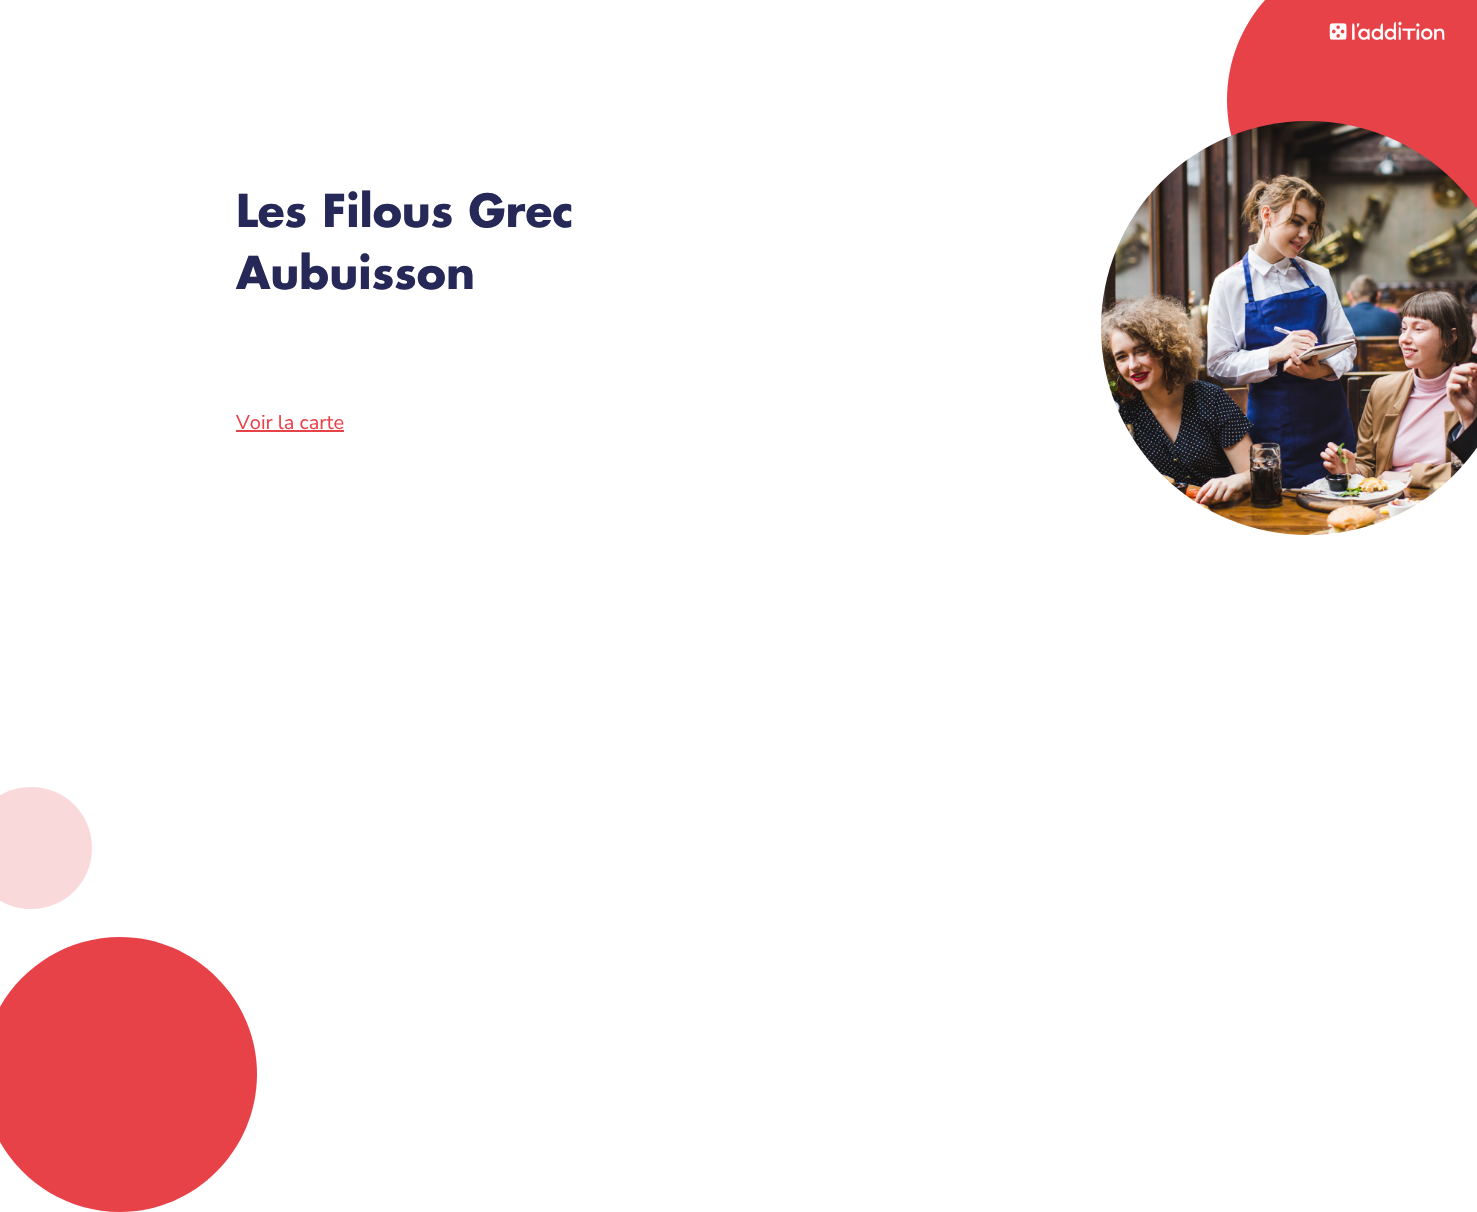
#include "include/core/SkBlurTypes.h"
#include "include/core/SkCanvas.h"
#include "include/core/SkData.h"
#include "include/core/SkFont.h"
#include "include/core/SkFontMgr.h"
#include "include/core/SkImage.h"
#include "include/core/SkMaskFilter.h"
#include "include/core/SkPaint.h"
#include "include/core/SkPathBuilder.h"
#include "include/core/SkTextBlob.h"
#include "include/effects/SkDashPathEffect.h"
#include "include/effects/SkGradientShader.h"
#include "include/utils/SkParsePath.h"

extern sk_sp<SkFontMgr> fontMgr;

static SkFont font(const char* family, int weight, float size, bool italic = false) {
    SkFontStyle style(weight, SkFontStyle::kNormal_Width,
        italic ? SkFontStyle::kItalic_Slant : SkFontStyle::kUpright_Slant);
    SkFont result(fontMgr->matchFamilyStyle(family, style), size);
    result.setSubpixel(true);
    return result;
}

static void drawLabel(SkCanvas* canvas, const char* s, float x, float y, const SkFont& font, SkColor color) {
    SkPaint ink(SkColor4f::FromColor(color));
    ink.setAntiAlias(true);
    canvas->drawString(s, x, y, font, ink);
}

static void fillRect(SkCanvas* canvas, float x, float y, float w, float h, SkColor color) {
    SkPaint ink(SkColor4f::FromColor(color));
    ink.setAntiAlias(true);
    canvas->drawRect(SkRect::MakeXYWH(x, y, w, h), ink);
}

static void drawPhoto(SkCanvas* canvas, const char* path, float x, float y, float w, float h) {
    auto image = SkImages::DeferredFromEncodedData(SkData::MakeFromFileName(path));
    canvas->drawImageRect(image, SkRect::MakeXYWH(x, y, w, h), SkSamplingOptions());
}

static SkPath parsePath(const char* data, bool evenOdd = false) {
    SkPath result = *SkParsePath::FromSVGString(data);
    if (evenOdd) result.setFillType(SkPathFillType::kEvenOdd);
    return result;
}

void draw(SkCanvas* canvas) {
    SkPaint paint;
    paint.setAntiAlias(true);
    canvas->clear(0xFFFFFFFF);
    paint.setColor(0xFFE84249);
    canvas->drawPath(parsePath("M1377 250C1294 250 1227 183 1227 100C1227 17 1294-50 1377-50C1460-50 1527 17 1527 100C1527 183 1460 250 1377 250Z"), paint);
    drawPhoto(canvas, "assets/img1.png", 1101, 121, 376, 414);
    drawPhoto(canvas, "assets/img2.png", 1329, 21, 116, 19);
    SkFont font1 = font("Futura", 700, 44);
    drawLabel(canvas, "Les Filous Grec", 236, 227, font1, 0xFF262957);
    drawLabel(canvas, "Aubuisson", 236, 289, font1, 0xFF262957);
    SkFont font2 = font("Nunito Sans", 400, 20);
    drawLabel(canvas, "Voir la carte", 236, 429, font2, 0xFFE84249);
    fillRect(canvas, 236, 430, 108, 2, 0xFFE84249);
    paint.setColor(0xFFFAD9DB);
    canvas->drawPath(parsePath("M31 909C65 909 92 882 92 848C92 814 65 787 31 787C-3 787-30 814-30 848C-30 882-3 909 31 909Z"), paint);
    paint.setColor(0xFFE84249);
    canvas->drawPath(parsePath("M120 1212C195 1212 257 1150 257 1074C257 999 195 937 120 937C44 937-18 999-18 1074C-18 1150 44 1212 120 1212Z"), paint);
}
